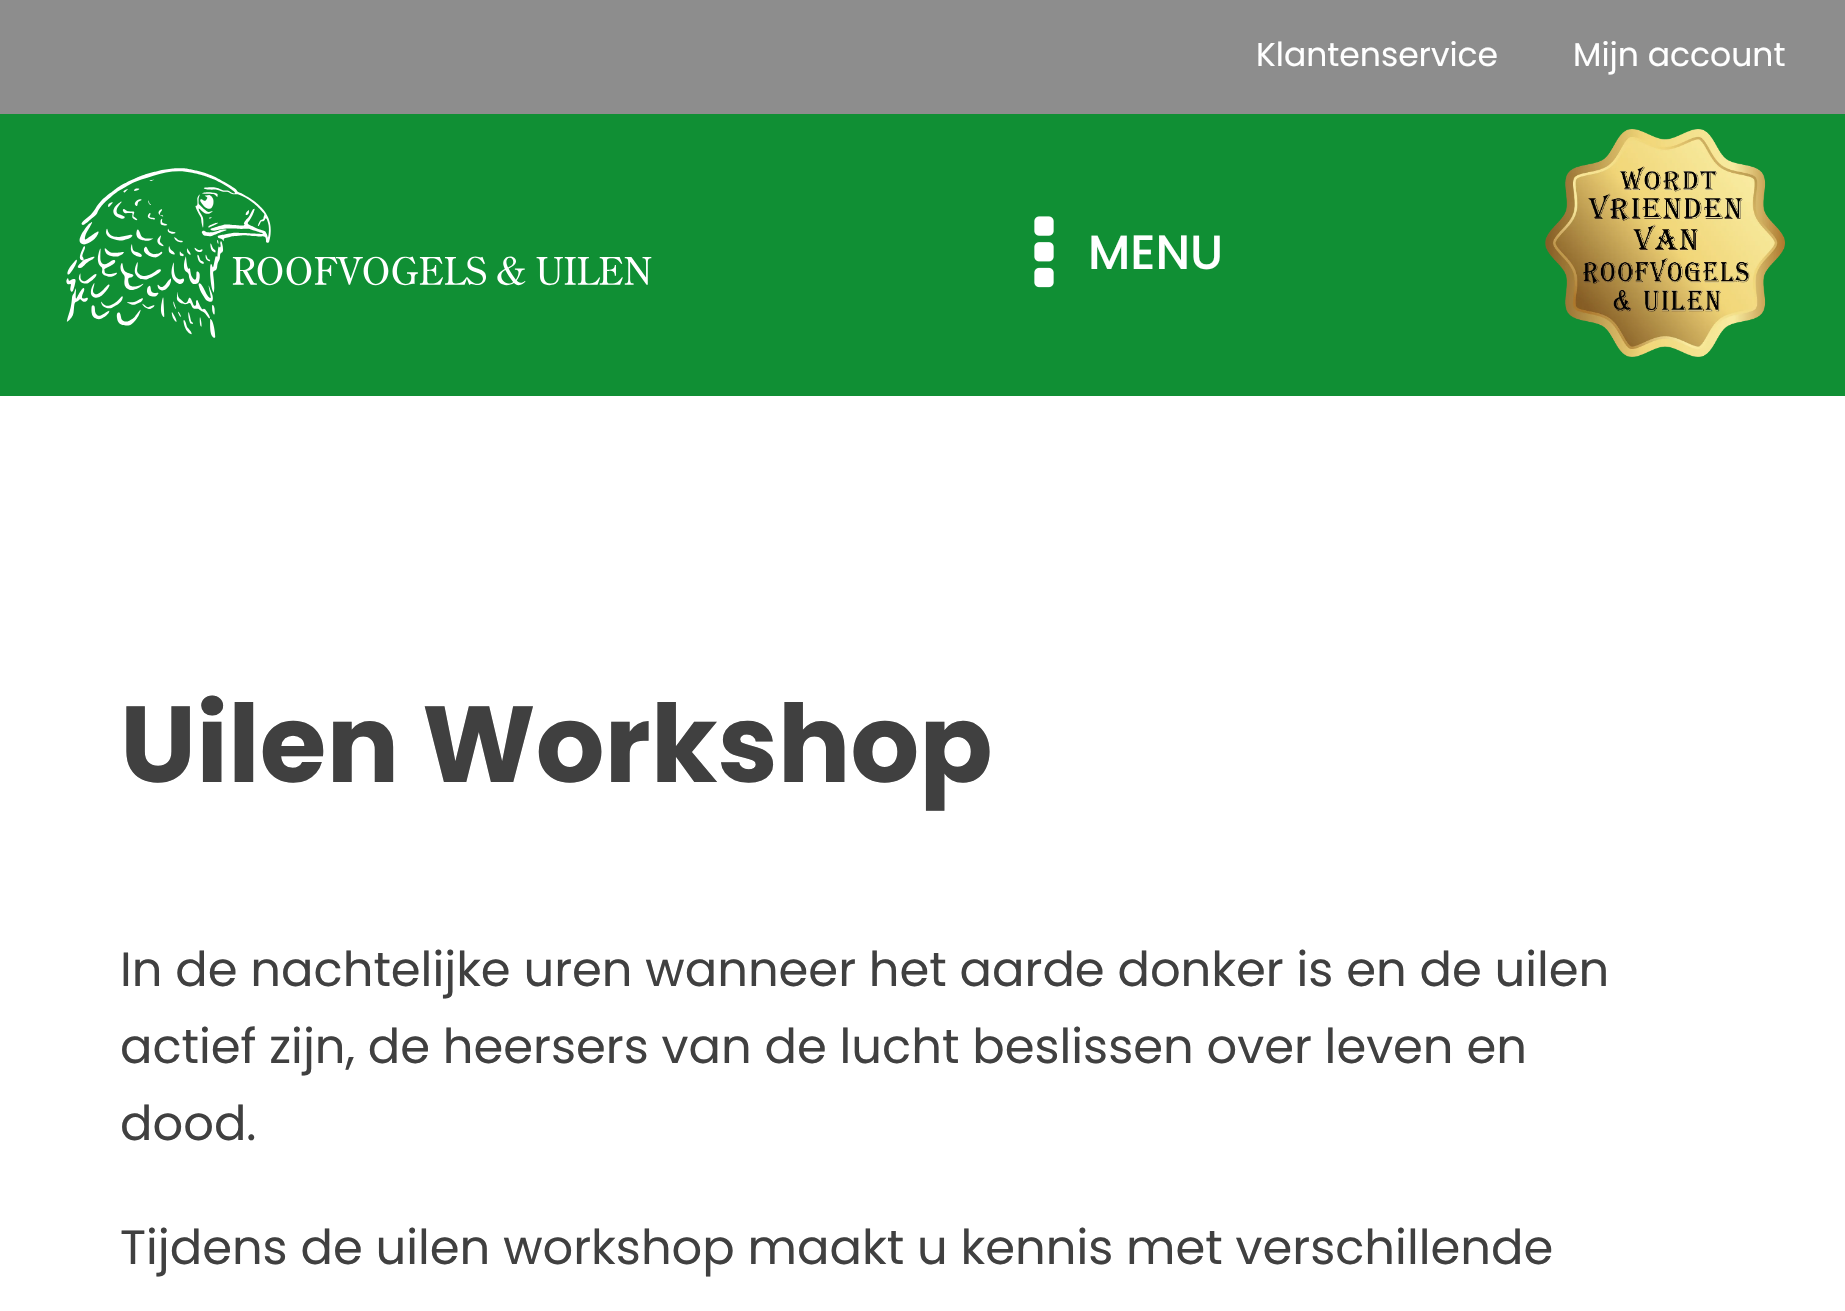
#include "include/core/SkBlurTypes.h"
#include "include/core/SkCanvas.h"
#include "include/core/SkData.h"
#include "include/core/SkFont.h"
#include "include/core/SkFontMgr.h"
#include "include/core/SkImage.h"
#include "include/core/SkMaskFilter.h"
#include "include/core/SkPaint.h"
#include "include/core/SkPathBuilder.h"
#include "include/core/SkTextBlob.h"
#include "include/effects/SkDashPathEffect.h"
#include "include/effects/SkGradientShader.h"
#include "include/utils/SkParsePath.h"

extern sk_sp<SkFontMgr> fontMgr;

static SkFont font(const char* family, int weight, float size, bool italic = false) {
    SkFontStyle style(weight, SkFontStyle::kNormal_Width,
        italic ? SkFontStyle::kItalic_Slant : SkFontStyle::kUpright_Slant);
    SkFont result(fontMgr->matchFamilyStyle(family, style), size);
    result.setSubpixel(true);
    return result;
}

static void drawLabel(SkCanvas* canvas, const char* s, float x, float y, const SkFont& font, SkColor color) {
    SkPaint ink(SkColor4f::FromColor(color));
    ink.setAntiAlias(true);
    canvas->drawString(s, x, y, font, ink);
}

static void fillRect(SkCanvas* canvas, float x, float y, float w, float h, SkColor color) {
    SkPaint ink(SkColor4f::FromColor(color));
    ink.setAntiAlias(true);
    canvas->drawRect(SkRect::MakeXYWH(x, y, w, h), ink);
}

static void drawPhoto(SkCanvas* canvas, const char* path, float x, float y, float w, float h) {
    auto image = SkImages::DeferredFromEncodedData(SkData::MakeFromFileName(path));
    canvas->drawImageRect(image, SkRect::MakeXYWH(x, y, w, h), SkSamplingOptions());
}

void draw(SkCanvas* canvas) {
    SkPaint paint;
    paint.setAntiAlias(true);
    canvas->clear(0xFFFFFFFF);
    fillRect(canvas, 0, 0, 1845, 114, 0xFF8D8D8D);
    SkFont font1 = font("Poppins", 400, 33);
    drawLabel(canvas, "Klantenservice", 1256, 66, font1, 0xFFFFFFFF);
    drawLabel(canvas, "Mijn account", 1573, 66, font1, 0xFFFFFFFF);
    fillRect(canvas, 0, 114, 1845, 282, 0xFF108F34);
    drawPhoto(canvas, "assets/img1.png", 66, 168, 586, 170);
    drawPhoto(canvas, "assets/img2.png", 1034, 216, 20, 72);
    SkFont font2 = font("Poppins", 500, 48);
    drawLabel(canvas, "MENU", 1088, 269, font2, 0xFFFFFFFF);
    drawPhoto(canvas, "assets/img3.png", 1545, 129, 240, 228);
    SkFont font3 = font("Poppins", 700, 108);
    drawLabel(canvas, "Uilen Workshop", 120, 782, font3, 0xFF404040);
    SkFont font4 = font("Poppins", 400, 48);
    drawLabel(canvas, "In de nachtelijke uren wanneer het aarde donker is en de uilen", 120, 986, font4, 0xFF404040);
    drawLabel(canvas, "actief zijn, de heersers van de lucht beslissen over leven en", 120, 1063, font4, 0xFF404040);
    drawLabel(canvas, "dood.", 120, 1140, font4, 0xFF404040);
    drawLabel(canvas, "Tijdens de uilen workshop maakt u kennis met verschillende", 120, 1264, font4, 0xFF404040);
}
